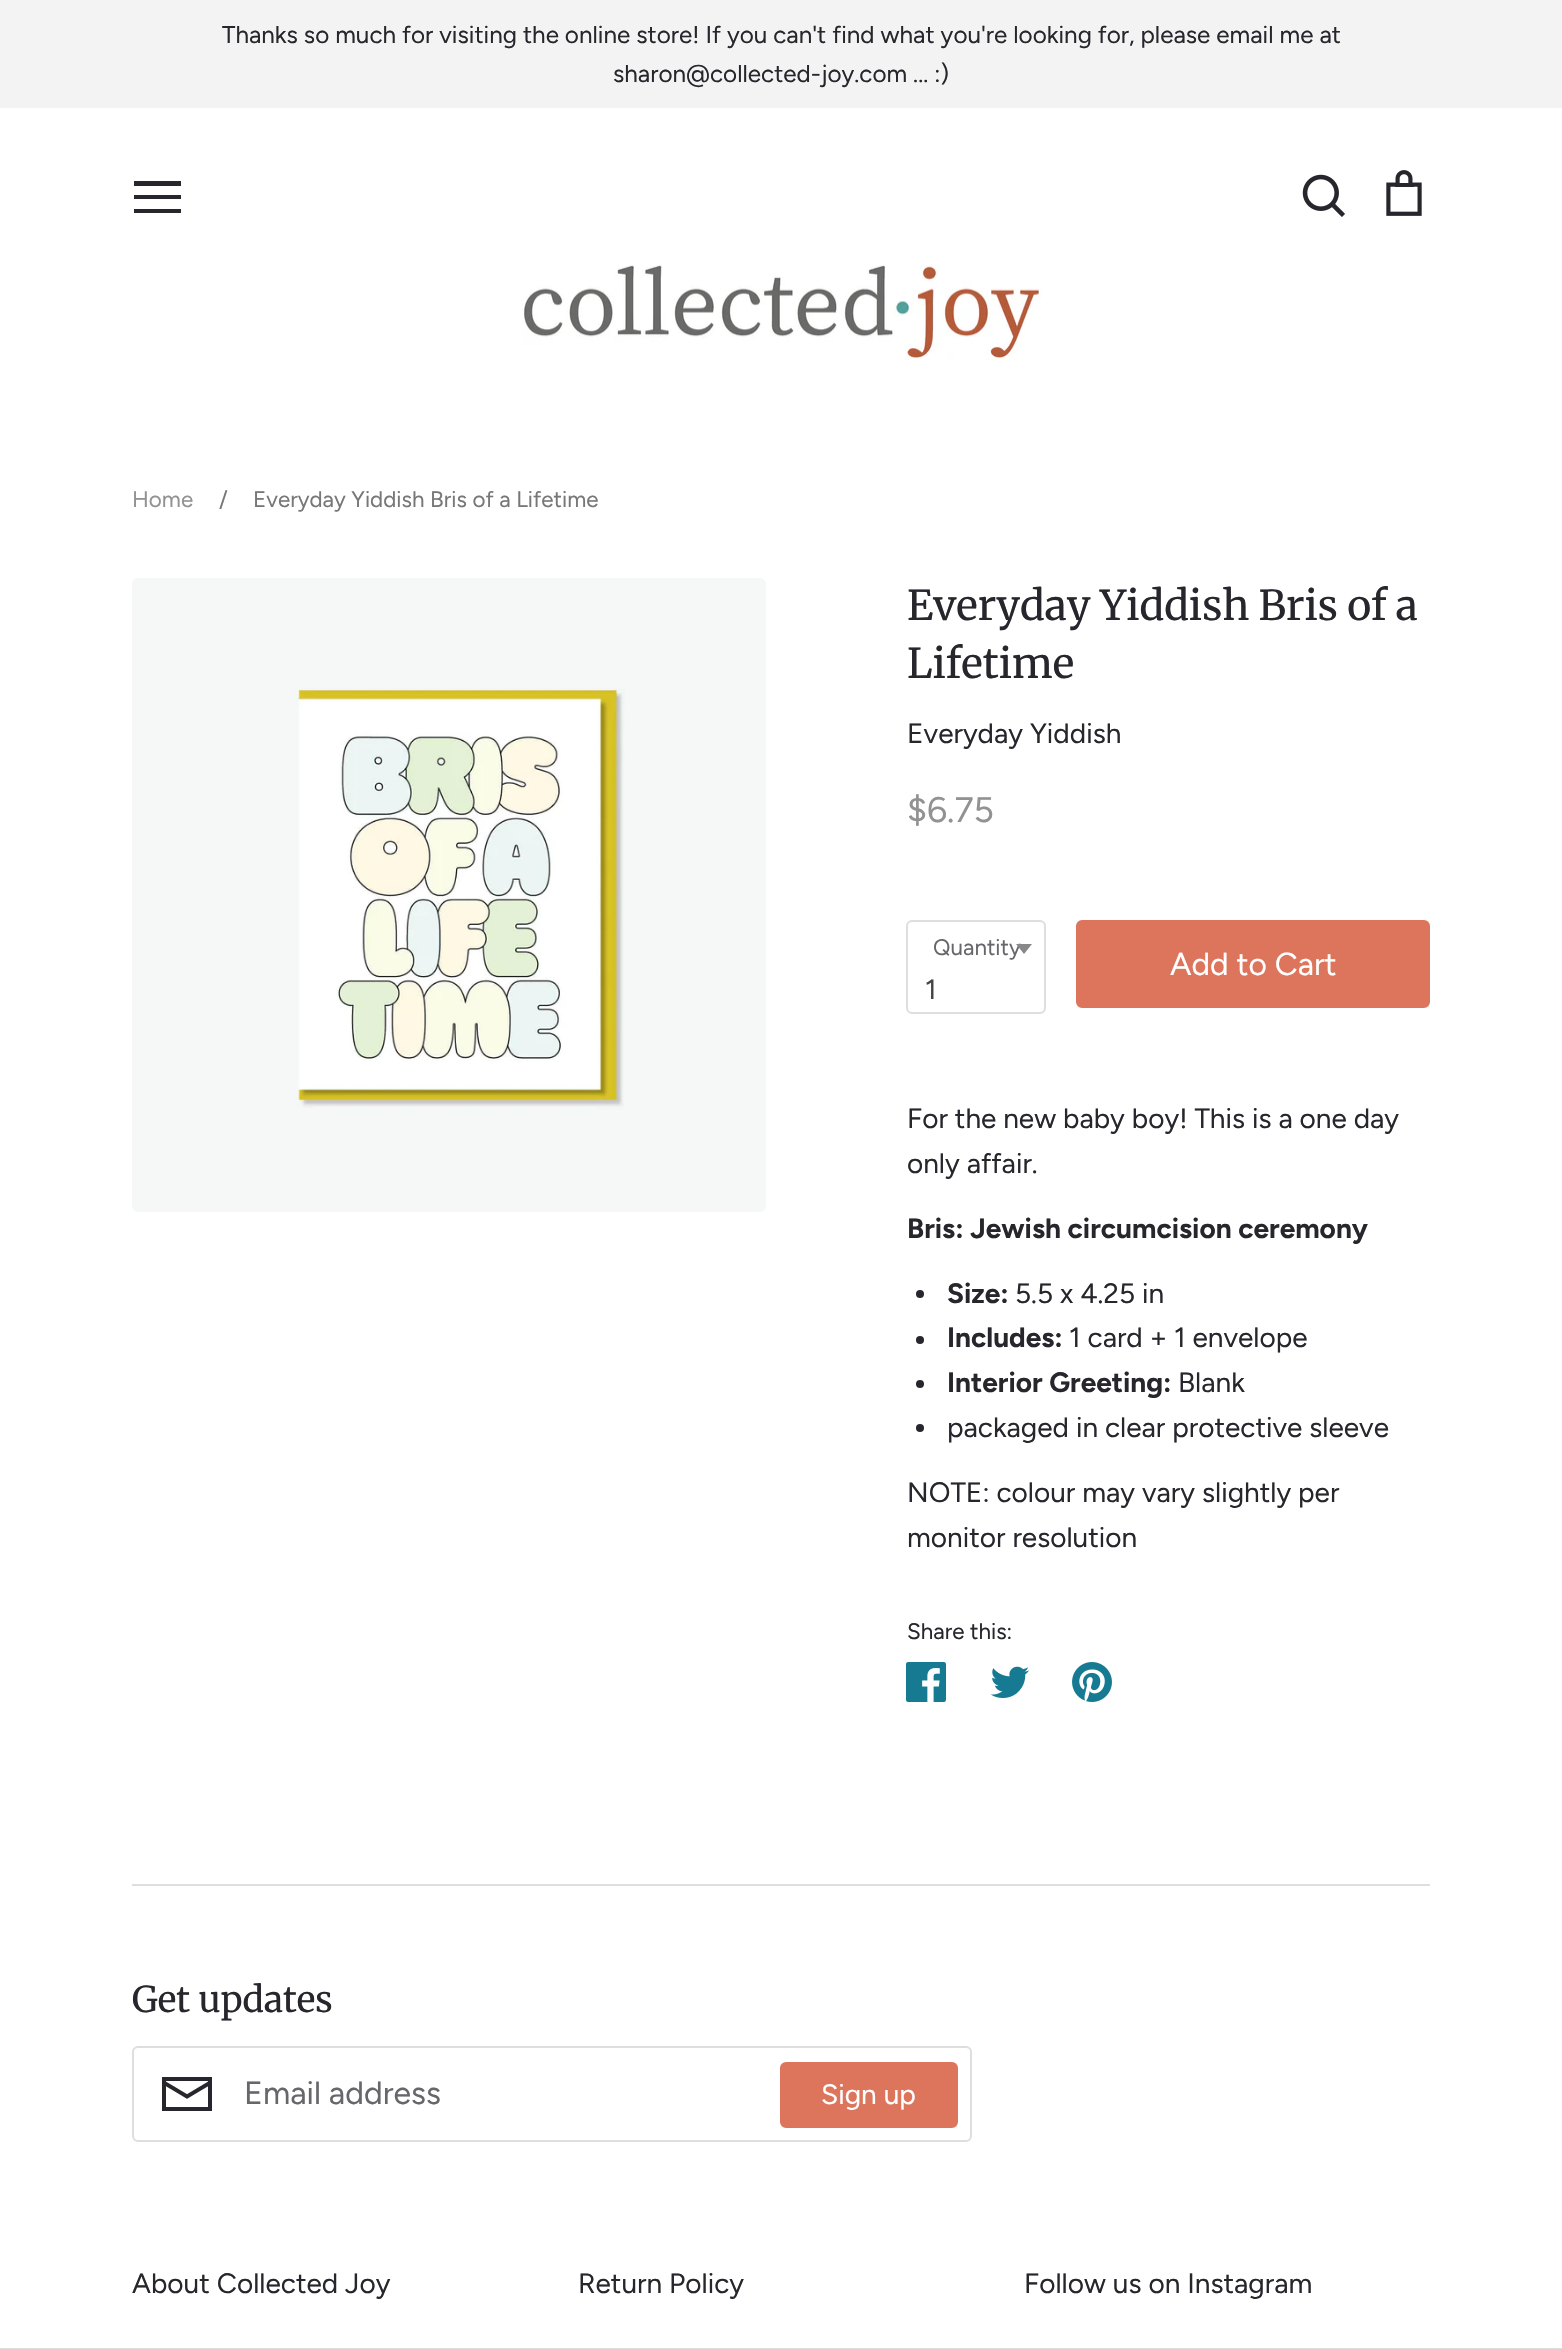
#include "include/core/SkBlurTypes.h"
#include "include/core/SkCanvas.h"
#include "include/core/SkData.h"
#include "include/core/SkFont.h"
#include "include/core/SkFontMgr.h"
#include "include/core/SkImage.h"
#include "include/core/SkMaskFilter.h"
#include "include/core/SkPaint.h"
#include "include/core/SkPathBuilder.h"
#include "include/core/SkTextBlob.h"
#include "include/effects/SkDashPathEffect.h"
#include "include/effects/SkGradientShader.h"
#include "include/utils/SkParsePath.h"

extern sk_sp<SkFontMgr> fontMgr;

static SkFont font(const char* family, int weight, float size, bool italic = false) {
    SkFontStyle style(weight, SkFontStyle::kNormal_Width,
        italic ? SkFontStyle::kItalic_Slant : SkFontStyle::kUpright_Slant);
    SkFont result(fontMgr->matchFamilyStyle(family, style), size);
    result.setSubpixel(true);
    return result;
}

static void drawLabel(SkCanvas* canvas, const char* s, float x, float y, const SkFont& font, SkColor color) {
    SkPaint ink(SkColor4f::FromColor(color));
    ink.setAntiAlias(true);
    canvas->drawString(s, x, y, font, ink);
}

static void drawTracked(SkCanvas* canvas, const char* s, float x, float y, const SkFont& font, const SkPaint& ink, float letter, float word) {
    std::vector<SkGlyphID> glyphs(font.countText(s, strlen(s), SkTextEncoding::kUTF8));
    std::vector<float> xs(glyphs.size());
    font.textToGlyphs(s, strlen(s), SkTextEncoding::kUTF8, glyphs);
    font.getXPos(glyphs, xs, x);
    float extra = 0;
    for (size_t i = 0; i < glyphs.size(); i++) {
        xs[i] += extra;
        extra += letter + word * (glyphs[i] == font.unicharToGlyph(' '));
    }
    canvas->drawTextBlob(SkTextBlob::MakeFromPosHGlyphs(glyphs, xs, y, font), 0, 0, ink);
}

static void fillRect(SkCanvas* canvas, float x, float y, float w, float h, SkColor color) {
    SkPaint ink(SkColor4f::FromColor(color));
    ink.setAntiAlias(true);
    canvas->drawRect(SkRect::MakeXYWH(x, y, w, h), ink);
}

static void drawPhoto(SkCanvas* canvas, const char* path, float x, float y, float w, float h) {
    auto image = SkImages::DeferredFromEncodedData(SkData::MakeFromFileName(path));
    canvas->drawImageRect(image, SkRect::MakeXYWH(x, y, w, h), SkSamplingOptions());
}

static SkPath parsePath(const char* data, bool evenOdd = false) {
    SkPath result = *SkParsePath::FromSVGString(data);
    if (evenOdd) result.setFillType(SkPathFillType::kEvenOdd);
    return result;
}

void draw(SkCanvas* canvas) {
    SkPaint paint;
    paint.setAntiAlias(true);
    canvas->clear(0xFFFFFFFF);
    fillRect(canvas, 0, 2348, 1562, 1, 0xFFDEDEDF);
    fillRect(canvas, 0, 0, 1562, 108, 0xFFF3F3F3);
    SkFont font1 = font("Figtree", 400, 24.25f);
    drawLabel(canvas, "Thanks so much for visiting the online store! If you can't find what you're looking for, please email me at", 222, 43, font1, 0xFF26262C);
    drawLabel(canvas, "sharon@collected-joy.com ... :)", 613, 82, font1, 0xFF26262C);
    fillRect(canvas, 134, 181, 47, 5, 0xFF26262C);
    fillRect(canvas, 134, 195, 47, 4, 0xFF26262C);
    fillRect(canvas, 134, 209, 47, 4, 0xFF26262C);
    drawPhoto(canvas, "assets/img1.png", 1302, 174, 43, 43);
    drawPhoto(canvas, "assets/img2.png", 1386, 170, 36, 46);
    drawPhoto(canvas, "assets/img3.png", 522, 265, 520, 96);
    SkFont font2 = font("Figtree", 400, 22.4f);
    drawLabel(canvas, "Home", 132, 507, font2, 0xFF929292);
    drawLabel(canvas, "/", 219, 507, font2, 0xFF777777);
    drawLabel(canvas, "Everyday Yiddish Bris of a Lifetime", 253, 507, font2, 0xFF777777);
    drawPhoto(canvas, "assets/img4.png", 132, 578, 634, 634);
    SkFont font3 = font("Merriweather", 400, 41);
    paint.setColor(0xFF26262C);
    drawTracked(canvas, "Everyday Yiddish Bris of a", 907, 620, font3, paint, 0, -0.5f);
    drawLabel(canvas, "Lifetime", 907, 678, font3, 0xFF26262C);
    SkFont font4 = font("Figtree", 400, 28);
    drawLabel(canvas, "Everyday Yiddish", 907, 743, font4, 0xFF26262C);
    SkFont font5 = font("Figtree", 400, 35.5f);
    drawLabel(canvas, "$6.75", 907, 822, font5, 0xFF929292);
    drawLabel(canvas, "Quantity", 933, 955, font2, 0xFF67676B);
    paint.setStroke(true);
    paint.setStrokeWidth(2);
    paint.setColor(0xFFDEDEDF);
    canvas->drawRoundRect(SkRect::MakeXYWH(907, 921, 138, 92), 5, 5, paint);
    paint.setStroke(false);
    paint.setColor(0xFF888888);
    canvas->drawPath(parsePath("M1016 944H1032L1024 954Z"), paint);
    drawLabel(canvas, "1", 925, 999, font4, 0xFF444444);
    paint.setColor(0xFFDC755C);
    canvas->drawRoundRect(SkRect::MakeXYWH(1077, 921, 352, 86), 5, 5, paint);
    paint.setStroke(true);
    canvas->drawRoundRect(SkRect::MakeXYWH(1077, 921, 352, 86), 5, 5, paint);
    SkFont font6 = font("Figtree", 400, 31.75f);
    drawLabel(canvas, "Add to Cart", 1170, 975, font6, 0xFFFFFFFF);
    drawLabel(canvas, "For the new baby boy! This is a one day", 907, 1128, font4, 0xFF26262C);
    drawLabel(canvas, "only affair.", 907, 1173, font4, 0xFF26262C);
    SkFont font7 = font("Figtree", 700, 28);
    drawLabel(canvas, "Bris: Jewish circumcision ceremony", 907, 1238, font7, 0xFF26262C);
    paint.setStroke(false);
    paint.setColor(0xFF26262C);
    canvas->drawCircle(920, 1294, 4, paint);
    drawLabel(canvas, "Size:", 947, 1303, font7, 0xFF26262C);
    drawLabel(canvas, "5.5 x 4.25 in", 1015, 1303, font4, 0xFF26262C);
    canvas->drawCircle(920, 1340, 4, paint);
    drawLabel(canvas, "Includes:", 947, 1347, font7, 0xFF26262C);
    drawLabel(canvas, "1 card + 1 envelope", 1069, 1347, font4, 0xFF26262C);
    canvas->drawCircle(920, 1384, 4, paint);
    drawLabel(canvas, "Interior Greeting:", 947, 1392, font7, 0xFF26262C);
    drawLabel(canvas, "Blank", 1178, 1392, font4, 0xFF26262C);
    canvas->drawCircle(920, 1428, 4, paint);
    drawLabel(canvas, "packaged in clear protective sleeve", 947, 1437, font4, 0xFF26262C);
    drawLabel(canvas, "NOTE: colour may vary slightly per", 907, 1502, font4, 0xFF26262C);
    drawLabel(canvas, "monitor resolution", 907, 1547, font4, 0xFF26262C);
    drawLabel(canvas, "Share this:", 907, 1639, font2, 0xFF26262C);
    drawPhoto(canvas, "assets/img5.png", 906, 1662, 40, 40);
    drawPhoto(canvas, "assets/img6.png", 990, 1666, 39, 32);
    drawPhoto(canvas, "assets/img7.png", 1072, 1662, 40, 40);
    fillRect(canvas, 132, 1884, 1298, 2, 0xFFDEDEDF);
    SkFont font8 = font("Merriweather", 400, 35.5f);
    drawLabel(canvas, "Get updates", 132, 2012, font8, 0xFF26262C);
    paint.setStroke(true);
    paint.setColor(0xFFDEDEDF);
    canvas->drawRoundRect(SkRect::MakeXYWH(133, 2047, 838, 94), 5, 5, paint);
    drawPhoto(canvas, "assets/img8.png", 162, 2077, 50, 34);
    SkFont font9 = font("Figtree", 400, 32);
    drawLabel(canvas, "Email address", 244, 2104, font9, 0xFF67676B);
    paint.setStroke(false);
    paint.setColor(0xFFDC755C);
    canvas->drawRoundRect(SkRect::MakeXYWH(781, 2063, 176, 64), 5, 5, paint);
    paint.setStroke(true);
    canvas->drawRoundRect(SkRect::MakeXYWH(781, 2063, 176, 64), 5, 5, paint);
    drawLabel(canvas, "Sign up", 821, 2104, font4, 0xFFFFFFFF);
    drawLabel(canvas, "About Collected Joy", 132, 2293, font4, 0xFF26262C);
    drawLabel(canvas, "Return Policy", 578, 2293, font4, 0xFF26262C);
    drawLabel(canvas, "Follow us on Instagram", 1024, 2293, font4, 0xFF26262C);
}
